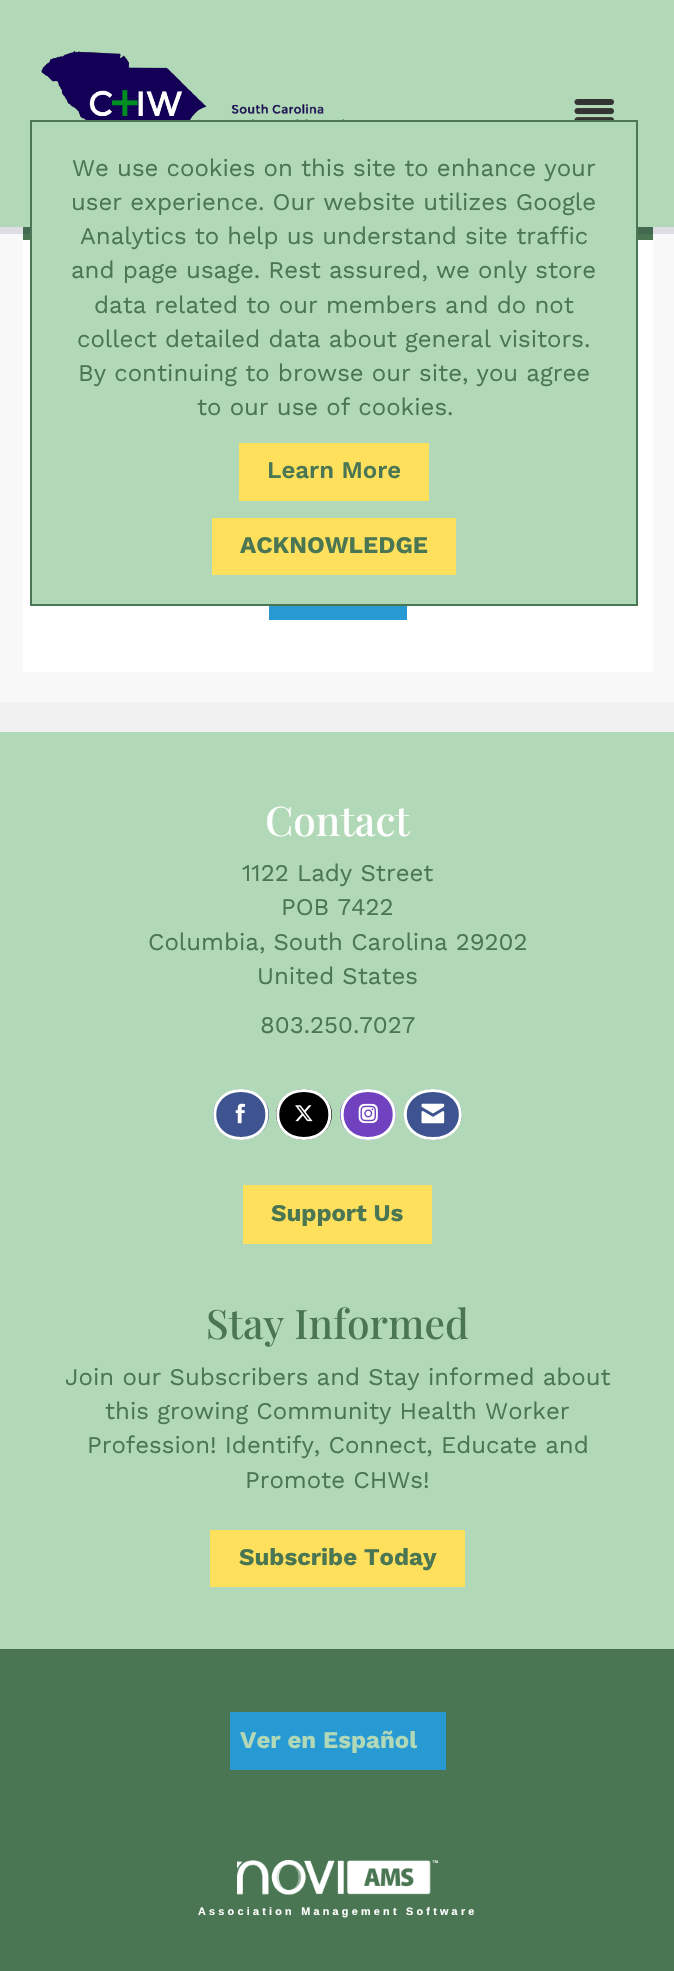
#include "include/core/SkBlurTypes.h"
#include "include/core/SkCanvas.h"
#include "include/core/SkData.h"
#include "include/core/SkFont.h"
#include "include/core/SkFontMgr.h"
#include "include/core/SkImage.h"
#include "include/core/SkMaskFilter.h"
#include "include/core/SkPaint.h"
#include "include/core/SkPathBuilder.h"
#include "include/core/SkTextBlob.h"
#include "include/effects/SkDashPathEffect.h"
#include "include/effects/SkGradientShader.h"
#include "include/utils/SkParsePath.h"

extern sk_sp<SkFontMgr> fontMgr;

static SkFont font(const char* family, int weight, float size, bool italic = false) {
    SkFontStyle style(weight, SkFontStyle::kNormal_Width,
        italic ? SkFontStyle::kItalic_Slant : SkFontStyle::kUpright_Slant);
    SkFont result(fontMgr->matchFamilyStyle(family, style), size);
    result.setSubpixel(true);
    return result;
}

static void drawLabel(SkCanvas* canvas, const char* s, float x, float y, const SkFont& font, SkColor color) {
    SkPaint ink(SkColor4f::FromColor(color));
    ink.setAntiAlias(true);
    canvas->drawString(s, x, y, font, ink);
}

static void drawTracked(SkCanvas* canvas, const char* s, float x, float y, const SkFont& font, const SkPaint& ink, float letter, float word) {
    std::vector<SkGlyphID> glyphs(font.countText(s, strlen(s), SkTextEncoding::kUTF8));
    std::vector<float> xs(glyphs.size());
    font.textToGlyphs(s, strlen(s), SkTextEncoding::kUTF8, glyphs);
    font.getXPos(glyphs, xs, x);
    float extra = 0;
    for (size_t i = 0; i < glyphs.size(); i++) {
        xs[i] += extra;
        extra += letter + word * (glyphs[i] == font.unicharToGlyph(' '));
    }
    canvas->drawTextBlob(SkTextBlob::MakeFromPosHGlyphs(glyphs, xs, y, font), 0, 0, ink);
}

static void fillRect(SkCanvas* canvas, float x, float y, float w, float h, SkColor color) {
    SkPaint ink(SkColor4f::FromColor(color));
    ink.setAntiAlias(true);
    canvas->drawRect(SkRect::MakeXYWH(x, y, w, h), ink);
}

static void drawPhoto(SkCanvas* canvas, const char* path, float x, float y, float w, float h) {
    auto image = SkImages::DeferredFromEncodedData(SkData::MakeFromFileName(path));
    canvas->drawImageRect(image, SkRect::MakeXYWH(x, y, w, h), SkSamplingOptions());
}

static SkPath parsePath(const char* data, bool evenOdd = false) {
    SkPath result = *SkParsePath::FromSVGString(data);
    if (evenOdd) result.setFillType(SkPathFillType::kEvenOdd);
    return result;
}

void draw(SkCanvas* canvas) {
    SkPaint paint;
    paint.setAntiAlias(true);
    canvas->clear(0xFFF8F8F8);
    fillRect(canvas, 0, 227, 674, 7, 0xFFDEDDE3);
    fillRect(canvas, 0, 0, 674, 227, 0xFFB1D8B7);
    drawPhoto(canvas, "assets/img1.png", 41, 51, 303, 69);
    drawPhoto(canvas, "assets/img2.png", 574, 99, 40, 21);
    fillRect(canvas, 23, 234, 630, 6, 0xFF4A7653);
    fillRect(canvas, 23, 227, 630, 7, 0xFF436950);
    fillRect(canvas, 23, 240, 630, 432, 0xFFFFFFFF);
    fillRect(canvas, 32, 227, 604, 377, 0xFFB1D8B7);
    paint.setStroke(true);
    paint.setStrokeWidth(2);
    paint.setColor(0xFF4A7653);
    canvas->drawRect(SkRect::MakeXYWH(31, 121, 606, 484), paint);
    SkFont font1 = font("Work Sans", 400, 24);
    drawLabel(canvas, "We use cookies on this site to enhance your", 72, 176, font1, 0xFF4A7653);
    drawLabel(canvas, "user experience. Our website utilizes Google", 71, 210, font1, 0xFF4A7653);
    drawLabel(canvas, "Analytics to help us understand site traffic", 80, 244, font1, 0xFF4A7653);
    drawLabel(canvas, "and page usage. Rest assured, we only store", 71, 278, font1, 0xFF4A7653);
    drawLabel(canvas, "data related to our members and do not", 94, 313, font1, 0xFF4A7653);
    drawLabel(canvas, "collect detailed data about general visitors.", 77, 347, font1, 0xFF4A7653);
    drawLabel(canvas, "By continuing to browse our site, you agree", 78, 381, font1, 0xFF4A7653);
    drawLabel(canvas, "to our use of cookies.", 197, 415, font1, 0xFF4A7653);
    fillRect(canvas, 239, 443, 190, 58, 0xFFFFE05C);
    SkFont font2 = font("Work Sans", 600, 24);
    drawLabel(canvas, "Learn More", 267, 478, font2, 0xFF4A7653);
    fillRect(canvas, 212, 518, 244, 57, 0xFFFFE05C);
    SkFont font3 = font("Work Sans", 700, 24);
    drawLabel(canvas, "ACKNOWLEDGE", 240, 553, font3, 0xFF4A7653);
    fillRect(canvas, 269, 606, 138, 14, 0xFF279AD3);
    fillRect(canvas, 0, 702, 674, 30, 0xFFF0F0F0);
    fillRect(canvas, 0, 732, 674, 917, 0xFFB1D8B7);
    SkFont font4 = font("Playfair Display", 500, 40.75f);
    drawLabel(canvas, "Contact", 265, 836, font4, 0xFFFFFFFF);
    drawLabel(canvas, "1122 Lady Street", 242, 881, font1, 0xFF4A7653);
    drawLabel(canvas, "POB 7422", 281, 915, font1, 0xFF4A7653);
    drawLabel(canvas, "Columbia, South Carolina 29202", 148, 950, font1, 0xFF4A7653);
    drawLabel(canvas, "United States", 257, 984, font1, 0xFF4A7653);
    drawLabel(canvas, "803.250.7027", 260, 1033, font1, 0xFF4A7653);
    paint.setStroke(false);
    paint.setColor(0xFF3E5491);
    canvas->drawOval(SkRect::MakeXYWH(213, 1089, 56, 51), paint);
    paint.setStroke(true);
    paint.setStrokeWidth(3);
    paint.setColor(0xFFFFFFFF);
    canvas->drawPath(parsePath("M241 1090.5C275.5 1090.5 275.5 1138.5 241 1138.5C206 1138.5 206 1090.5 241 1090.5Z"), paint);
    drawPhoto(canvas, "assets/img3.png", 235, 1103, 11, 21);
    paint.setStroke(false);
    paint.setColor(0xFF000000);
    canvas->drawOval(SkRect::MakeXYWH(276, 1089, 56, 51), paint);
    paint.setStroke(true);
    paint.setColor(0xFFFFFFFF);
    canvas->drawPath(parsePath("M304 1090.5C338.5 1090.5 338.5 1138.5 304 1138.5C269 1138.5 269 1090.5 304 1090.5Z"), paint);
    drawPhoto(canvas, "assets/img4.png", 295, 1105, 18, 17);
    paint.setStroke(false);
    paint.setColor(0xFF7042C0);
    canvas->drawOval(SkRect::MakeXYWH(340, 1089, 56, 51), paint);
    paint.setStroke(true);
    paint.setColor(0xFFFFFFFF);
    canvas->drawPath(parsePath("M368 1090.5C403 1090.5 403 1138.5 368 1138.5C333.5 1138.5 333.5 1090.5 368 1090.5Z"), paint);
    drawPhoto(canvas, "assets/img5.png", 358, 1103, 20, 21);
    paint.setStroke(false);
    paint.setColor(0xFF3E5491);
    canvas->drawOval(SkRect::MakeXYWH(404, 1089, 58, 51), paint);
    paint.setStroke(true);
    paint.setColor(0xFFFFFFFF);
    canvas->drawPath(parsePath("M433 1090.5C469.5 1090.5 469.5 1138.5 433 1138.5C396 1138.5 396 1090.5 433 1090.5Z"), paint);
    drawPhoto(canvas, "assets/img6.png", 421, 1103, 24, 21);
    fillRect(canvas, 243, 1185, 189, 59, 0xFFFFE05C);
    drawLabel(canvas, "Support Us", 271, 1221, font3, 0xFF4A7653);
    drawLabel(canvas, "Stay Informed", 206, 1339, font4, 0xFF4A7653);
    drawLabel(canvas, "Join our Subscribers and Stay informed about", 65, 1385, font1, 0xFF4A7653);
    drawLabel(canvas, "this growing Community Health Worker", 105, 1419, font1, 0xFF4A7653);
    drawLabel(canvas, "Profession! Identify, Connect, Educate and", 87, 1453, font1, 0xFF4A7653);
    drawLabel(canvas, "Promote CHWs!", 245, 1488, font1, 0xFF4A7653);
    fillRect(canvas, 210, 1530, 255, 57, 0xFFFFE05C);
    drawLabel(canvas, "Subscribe Today", 239, 1565, font3, 0xFF4A7653);
    fillRect(canvas, 0, 1649, 674, 322, 0xFF4A7653);
    fillRect(canvas, 230, 1712, 216, 58, 0xFF279AD3);
    drawLabel(canvas, "Ver en Español", 240, 1748, font3, 0xFFB1D8B7);
    drawPhoto(canvas, "assets/img7.png", 237, 1860, 201, 35);
    SkFont font5 = font("Liberation Sans", 700, 10.8f);
    paint.setStroke(false);
    drawTracked(canvas, "Association Management Software", 198, 1915, font5, paint, 3.25f, 0);
}
